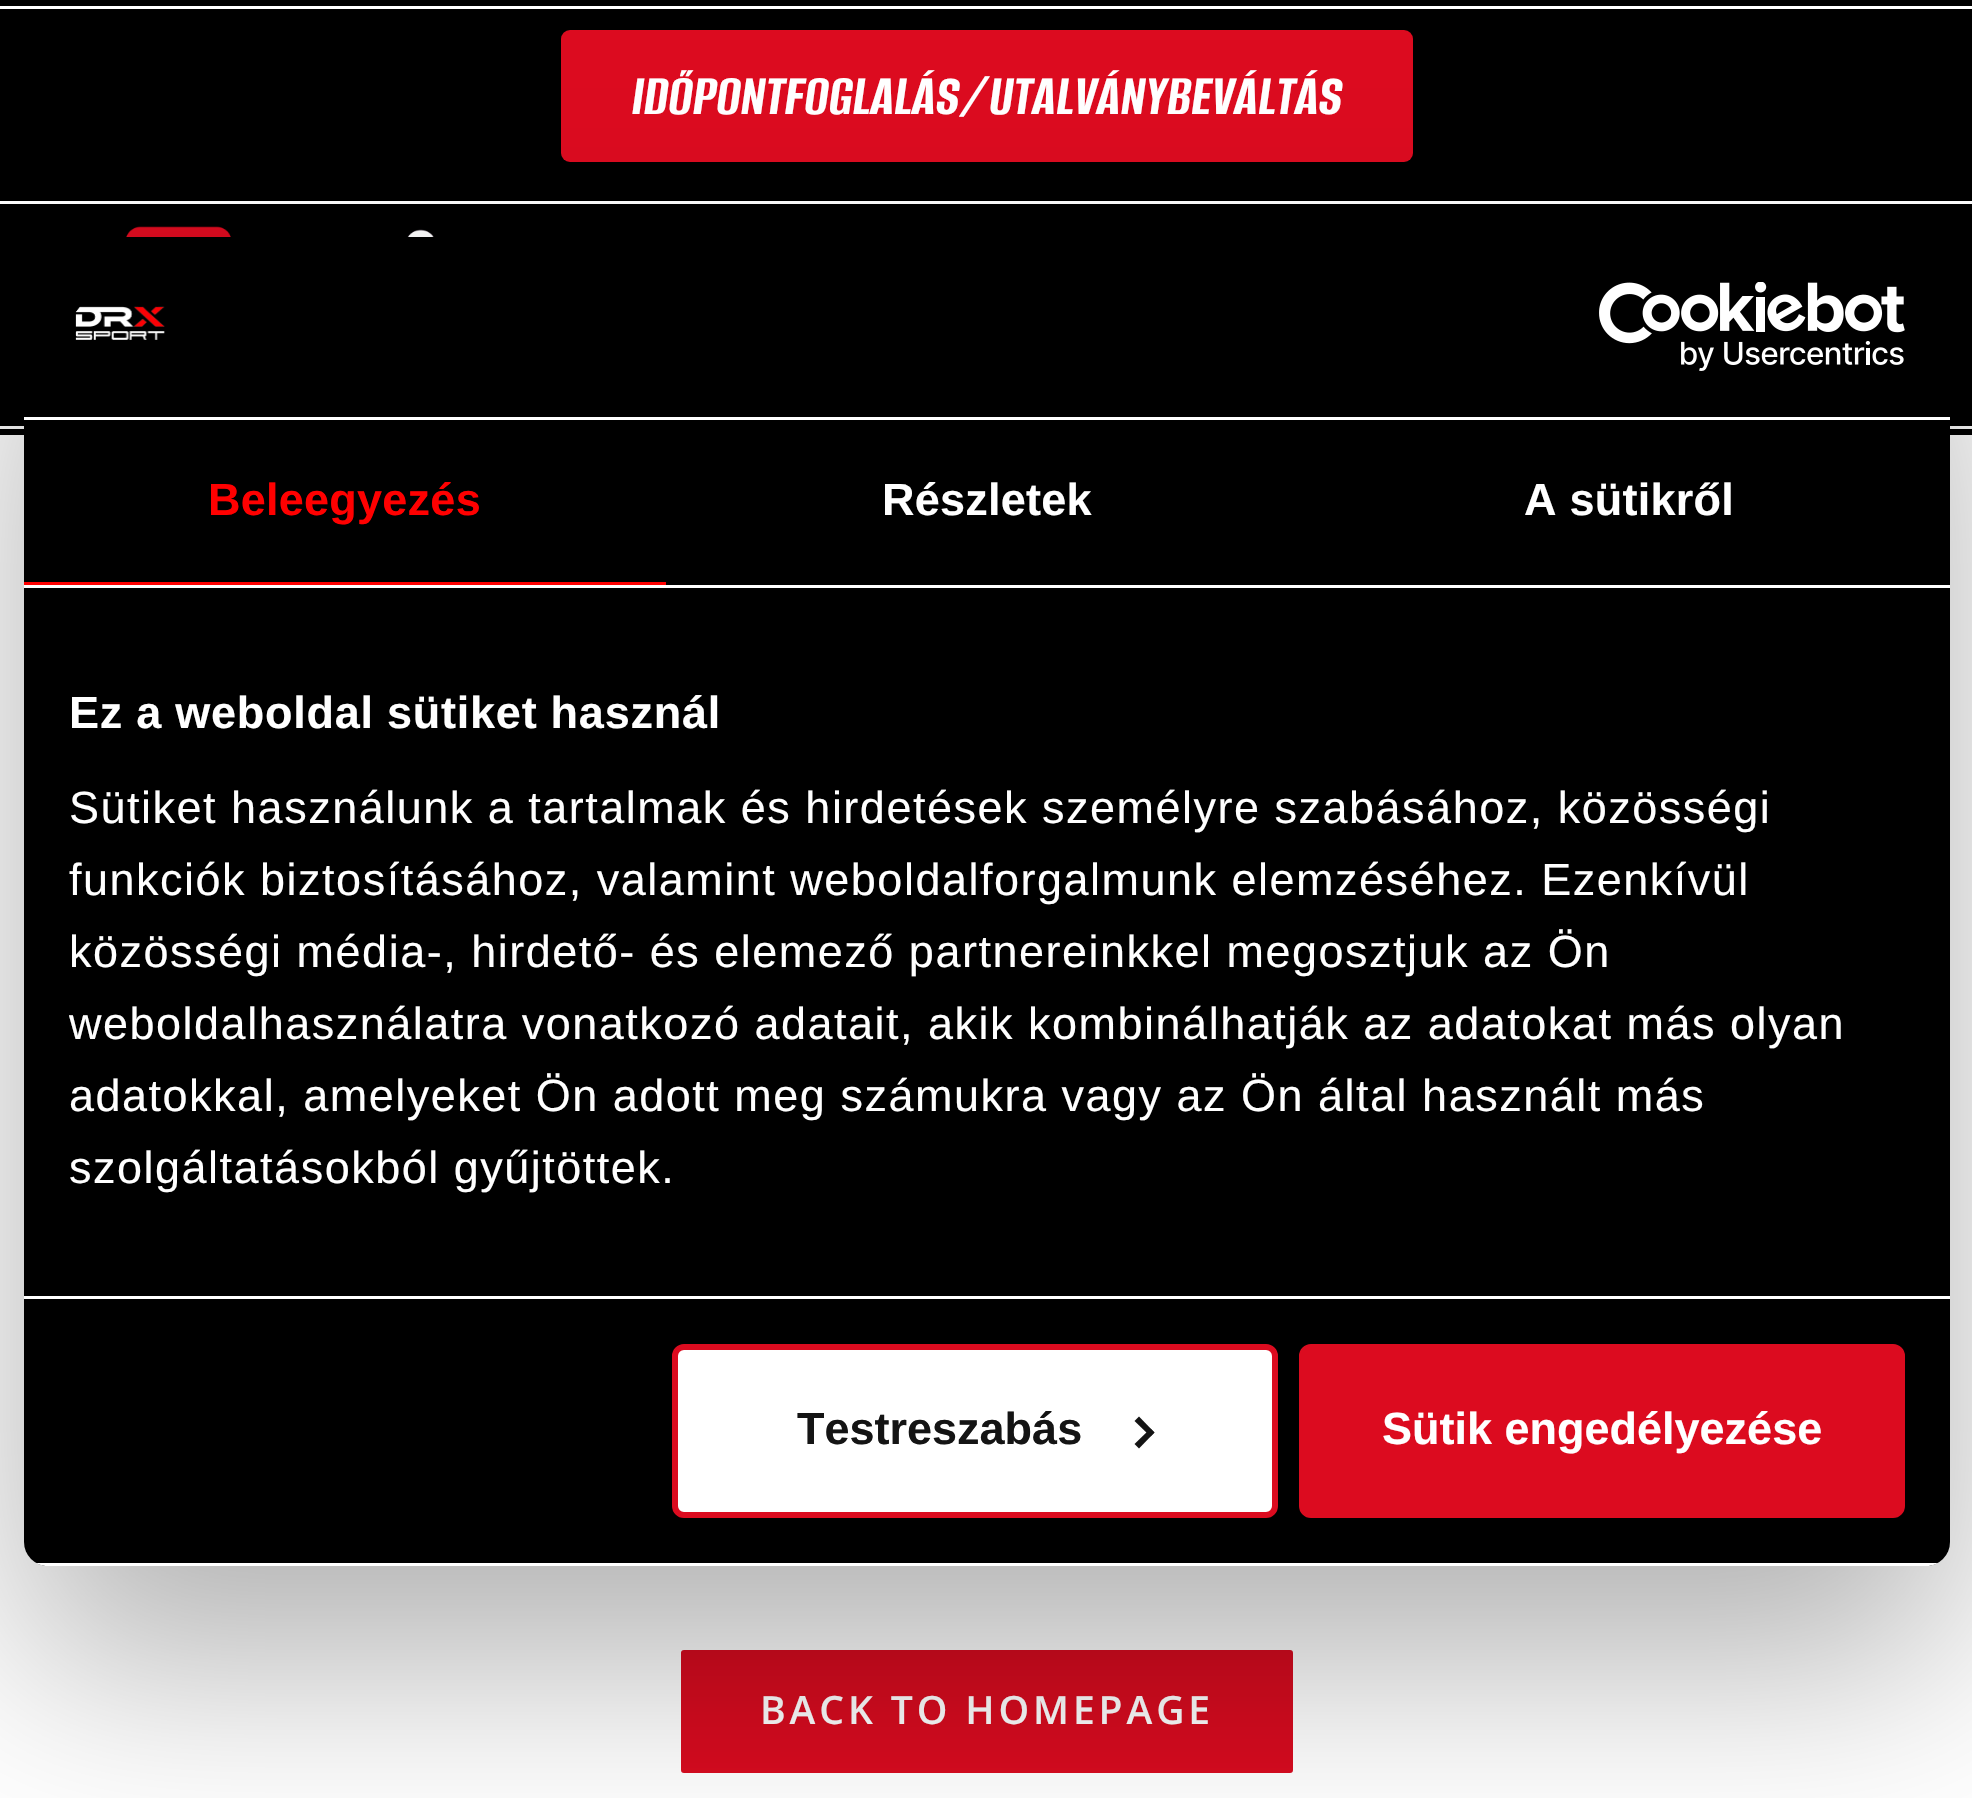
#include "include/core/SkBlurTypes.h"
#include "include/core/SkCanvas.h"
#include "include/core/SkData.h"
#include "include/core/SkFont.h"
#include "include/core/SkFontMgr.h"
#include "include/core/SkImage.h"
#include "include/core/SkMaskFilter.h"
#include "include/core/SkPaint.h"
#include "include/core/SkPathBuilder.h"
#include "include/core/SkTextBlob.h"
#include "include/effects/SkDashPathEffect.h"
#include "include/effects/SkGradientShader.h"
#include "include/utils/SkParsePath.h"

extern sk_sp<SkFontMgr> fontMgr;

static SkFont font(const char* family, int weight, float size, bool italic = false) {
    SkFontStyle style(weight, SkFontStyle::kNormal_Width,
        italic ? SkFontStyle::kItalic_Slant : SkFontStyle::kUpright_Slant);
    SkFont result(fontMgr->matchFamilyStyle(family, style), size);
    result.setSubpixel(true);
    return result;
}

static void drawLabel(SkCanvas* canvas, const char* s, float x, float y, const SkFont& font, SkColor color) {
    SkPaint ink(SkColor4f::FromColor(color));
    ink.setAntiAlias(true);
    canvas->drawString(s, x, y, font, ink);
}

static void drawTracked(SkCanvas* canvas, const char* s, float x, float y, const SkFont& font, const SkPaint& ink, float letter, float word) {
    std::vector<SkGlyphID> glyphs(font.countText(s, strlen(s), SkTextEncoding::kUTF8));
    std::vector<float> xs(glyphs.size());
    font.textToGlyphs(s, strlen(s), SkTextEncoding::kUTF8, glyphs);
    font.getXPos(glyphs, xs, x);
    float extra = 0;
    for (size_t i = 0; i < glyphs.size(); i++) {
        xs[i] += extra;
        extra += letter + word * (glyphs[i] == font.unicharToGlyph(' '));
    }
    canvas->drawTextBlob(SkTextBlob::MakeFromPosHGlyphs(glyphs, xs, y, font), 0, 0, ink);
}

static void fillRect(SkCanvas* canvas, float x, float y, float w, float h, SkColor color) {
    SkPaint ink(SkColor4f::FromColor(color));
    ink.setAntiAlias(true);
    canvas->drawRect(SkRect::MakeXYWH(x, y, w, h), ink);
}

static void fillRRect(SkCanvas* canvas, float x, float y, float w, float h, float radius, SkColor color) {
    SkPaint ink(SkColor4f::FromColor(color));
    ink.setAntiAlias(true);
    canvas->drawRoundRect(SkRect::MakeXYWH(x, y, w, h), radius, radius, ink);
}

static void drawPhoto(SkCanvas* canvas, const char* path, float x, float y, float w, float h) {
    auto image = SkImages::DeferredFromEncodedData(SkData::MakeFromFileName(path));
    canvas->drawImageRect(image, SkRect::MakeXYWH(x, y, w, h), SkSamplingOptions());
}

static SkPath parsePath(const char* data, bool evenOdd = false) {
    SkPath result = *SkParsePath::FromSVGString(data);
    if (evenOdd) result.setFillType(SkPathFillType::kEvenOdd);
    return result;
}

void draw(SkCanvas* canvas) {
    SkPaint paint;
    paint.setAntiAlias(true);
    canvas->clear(0xFFFFFFFF);
    fillRect(canvas, 0, 0, 1972, 210, 0xFF000000);
    fillRect(canvas, 0, 6, 1972, 3, 0xFFFFFFFF);
    fillRRect(canvas, 561, 30, 852, 132, 9, 0xFFDC0B1F);
    SkFont font1 = font("Alumni Sans", 700, 60, true);
    drawLabel(canvas, "IDŐPONTFOGLALÁS/UTALVÁNYBEVÁLTÁS", 632, 114, font1, 0xFFFFFFFF);
    fillRect(canvas, 0, 201, 1972, 3, 0xFFFFFFFF);
    fillRect(canvas, 0, 210, 1972, 225, 0xFF000000);
    fillRect(canvas, 0, 426, 1972, 3, 0xFFFFFFFF);
    drawPhoto(canvas, "assets/img1.png", 126, 226, 308, 11);
    paint.setColor(0xFFD80B1F);
    canvas->drawRoundRect(SkRect::MakeXYWH(679.5f, 1648.5f, 615, 126), 4.5f, 4.5f, paint);
    paint.setStroke(true);
    paint.setStrokeWidth(3);
    paint.setColor(0xFFFFFFFF);
    canvas->drawRoundRect(SkRect::MakeXYWH(679.5f, 1648.5f, 615, 126), 4.5f, 4.5f, paint);
    SkFont font2 = font("Open Sans", 600, 39);
    paint.setStroke(false);
    drawTracked(canvas, "BACK TO HOMEPAGE", 760, 1724, font2, paint, 3.9f, 0);
    paint.setColor(0x4D000000);
    paint.setMaskFilter(SkMaskFilter::MakeBlur(kNormal_SkBlurStyle, 102));
    canvas->drawRoundRect(SkRect::MakeXYWH(24, 333, 1926, 1329), 24, 24, paint);
    paint.setMaskFilter(nullptr);
    fillRRect(canvas, 24, 237, 1926, 1329, 24, 0xFF000000);
    fillRect(canvas, 24, 417, 1926, 3, 0xFFFFFFFF);
    drawPhoto(canvas, "assets/img2.png", 75, 306, 90, 34);
    drawPhoto(canvas, "assets/img3.png", 1599, 282, 306, 89);
    fillRect(canvas, 24, 585, 1926, 3, 0xFFFFFFFF);
    fillRect(canvas, 24, 582, 642, 3, 0xFFFF0000);
    SkFont font3 = font("Liberation Sans", 700, 45);
    paint.setColor(0xFFFF0000);
    drawTracked(canvas, "Beleegyezés", 208, 515, font3, paint, 0.25f, 0);
    paint.setColor(0xFFFFFFFF);
    drawTracked(canvas, "Részletek", 882, 515, font3, paint, 0.25f, 0);
    drawTracked(canvas, "A sütikről", 1524, 515, font3, paint, 0.25f, 0);
    fillRect(canvas, 24, 1296, 1926, 3, 0xFFFFFFFF);
    drawTracked(canvas, "Ez a weboldal sütiket használ", 69, 728, font3, paint, 0.75f, 0);
    SkFont font4 = font("Liberation Sans", 400, 45);
    drawTracked(canvas, "Sütiket használunk a tartalmak és hirdetések személyre szabásához, közösségi", 69, 823, font4, paint, 1.5f, 0);
    drawTracked(canvas, "funkciók biztosításához, valamint weboldalforgalmunk elemzéséhez. Ezenkívül", 69, 895, font4, paint, 1.5f, 0);
    drawTracked(canvas, "közösségi média-, hirdető- és elemező partnereinkkel megosztjuk az Ön", 69, 967, font4, paint, 1.5f, 0);
    drawTracked(canvas, "weboldalhasználatra vonatkozó adatait, akik kombinálhatják az adatokat más olyan", 69, 1039, font4, paint, 1.5f, 0);
    drawTracked(canvas, "adatokkal, amelyeket Ön adott meg számukra vagy az Ön által használt más", 69, 1111, font4, paint, 1.5f, 0);
    drawTracked(canvas, "szolgáltatásokból gyűjtöttek.", 69, 1183, font4, paint, 1.5f, 0);
    canvas->save();
    canvas->clipPath(parsePath("M48 237H1926C1939.5 237 1950 247.5 1950 261V1542C1950 1555.5 1939.5 1566 1926 1566H48C34.5 1566 24 1555.5 24 1542V261C24 247.5 34.5 237 48 237Z"), true);
    fillRect(canvas, 36, 1563, 1902, 3, 0xFFFFFFFF);
    canvas->restore();
    canvas->drawRoundRect(SkRect::MakeXYWH(675, 1347, 600, 168), 9, 9, paint);
    paint.setStroke(true);
    paint.setStrokeWidth(6);
    paint.setColor(0xFFDC0B1F);
    canvas->drawRoundRect(SkRect::MakeXYWH(675, 1347, 600, 168), 9, 9, paint);
    drawLabel(canvas, "Testreszabás", 797, 1444, font3, 0xFF141414);
    paint.setStroke(false);
    paint.setColor(0xFF141414);
    canvas->drawPath(parsePath("M1139 1416.5L1154.5 1432.5L1150.5 1436.5L1134.5 1421Z"), paint);
    canvas->drawPath(parsePath("M1150.5 1428.5L1154.5 1432.5L1139 1448.5L1134.5 1444Z"), paint);
    paint.setColor(0xFFDC0B1F);
    canvas->drawRoundRect(SkRect::MakeXYWH(1302, 1347, 600, 168), 9, 9, paint);
    paint.setStroke(true);
    canvas->drawRoundRect(SkRect::MakeXYWH(1302, 1347, 600, 168), 9, 9, paint);
    drawLabel(canvas, "Sütik engedélyezése", 1382, 1444, font3, 0xFFFFFFFF);
}
